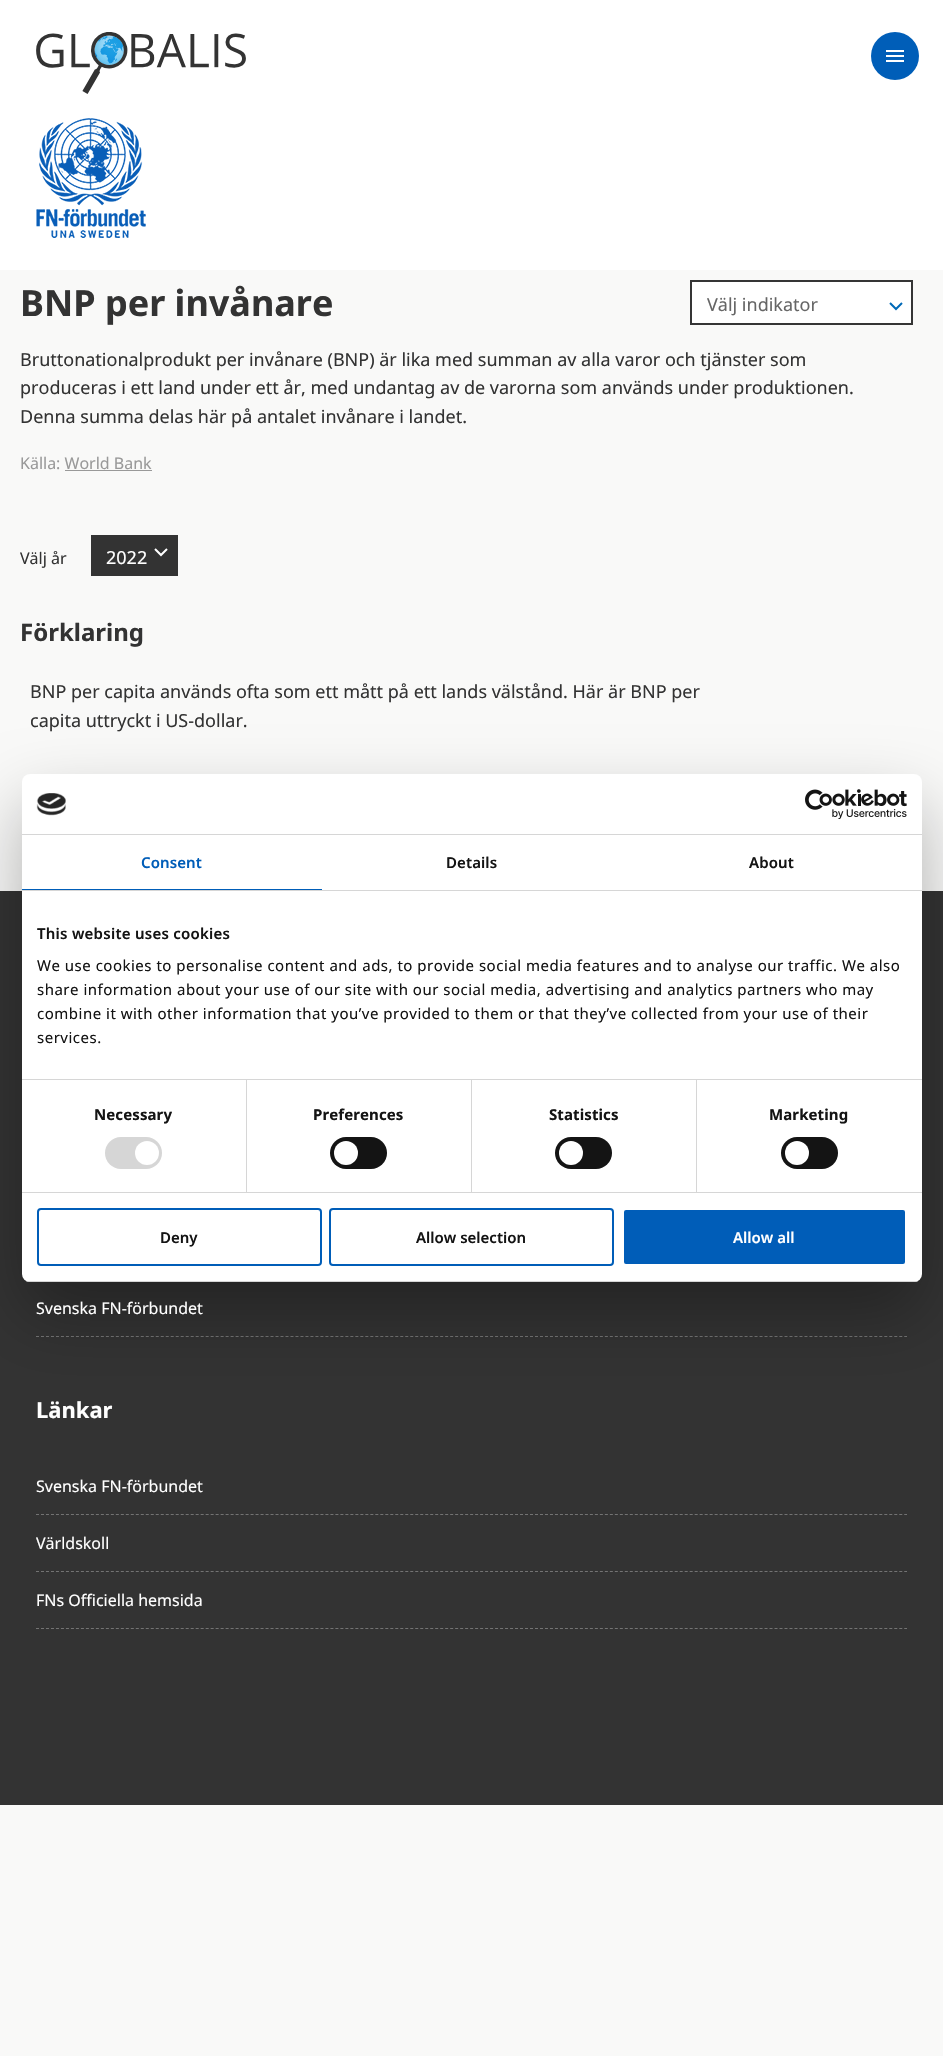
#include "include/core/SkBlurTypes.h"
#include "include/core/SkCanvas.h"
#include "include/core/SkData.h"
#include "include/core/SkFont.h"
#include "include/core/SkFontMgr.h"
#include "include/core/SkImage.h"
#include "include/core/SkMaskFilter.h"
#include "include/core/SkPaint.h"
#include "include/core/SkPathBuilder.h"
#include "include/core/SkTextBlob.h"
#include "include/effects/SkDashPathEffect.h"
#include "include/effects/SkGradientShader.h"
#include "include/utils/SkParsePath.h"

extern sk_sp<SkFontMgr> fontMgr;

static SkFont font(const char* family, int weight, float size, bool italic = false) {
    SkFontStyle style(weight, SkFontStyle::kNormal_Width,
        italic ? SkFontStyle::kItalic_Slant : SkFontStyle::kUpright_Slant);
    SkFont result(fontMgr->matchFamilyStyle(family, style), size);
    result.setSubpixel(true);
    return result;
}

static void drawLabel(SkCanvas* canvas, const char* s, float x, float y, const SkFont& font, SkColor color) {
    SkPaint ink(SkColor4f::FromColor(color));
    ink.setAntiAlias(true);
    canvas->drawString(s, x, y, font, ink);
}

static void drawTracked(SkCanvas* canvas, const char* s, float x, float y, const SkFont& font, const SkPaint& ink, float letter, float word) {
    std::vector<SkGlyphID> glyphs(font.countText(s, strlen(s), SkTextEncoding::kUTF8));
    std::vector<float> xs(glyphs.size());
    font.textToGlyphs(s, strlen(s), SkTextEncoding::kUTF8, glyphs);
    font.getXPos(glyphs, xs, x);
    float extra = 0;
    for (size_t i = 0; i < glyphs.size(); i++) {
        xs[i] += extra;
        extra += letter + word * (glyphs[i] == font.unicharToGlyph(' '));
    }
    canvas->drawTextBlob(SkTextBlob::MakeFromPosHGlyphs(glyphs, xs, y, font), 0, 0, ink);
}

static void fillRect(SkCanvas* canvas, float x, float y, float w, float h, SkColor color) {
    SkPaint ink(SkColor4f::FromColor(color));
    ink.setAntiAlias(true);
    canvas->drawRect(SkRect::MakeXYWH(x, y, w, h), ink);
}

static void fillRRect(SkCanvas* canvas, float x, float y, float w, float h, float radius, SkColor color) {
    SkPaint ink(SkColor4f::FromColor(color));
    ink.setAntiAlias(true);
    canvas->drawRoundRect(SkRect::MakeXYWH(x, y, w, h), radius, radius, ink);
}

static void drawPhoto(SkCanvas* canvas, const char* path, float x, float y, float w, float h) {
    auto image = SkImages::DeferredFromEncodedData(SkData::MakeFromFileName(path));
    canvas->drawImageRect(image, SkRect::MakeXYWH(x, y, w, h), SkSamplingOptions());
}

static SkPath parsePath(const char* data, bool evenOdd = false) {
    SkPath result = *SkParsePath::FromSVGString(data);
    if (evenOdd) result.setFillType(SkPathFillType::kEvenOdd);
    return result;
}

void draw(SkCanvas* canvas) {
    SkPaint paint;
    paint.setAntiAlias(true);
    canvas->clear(0xFFF9F9F8);
    fillRect(canvas, 0, 0, 943, 270, 0xFFFFFFFF);
    drawPhoto(canvas, "assets/img1.png", 36, 32, 210, 62);
    paint.setColor(0xFF005EB8);
    canvas->drawCircle(895, 56, 24, paint);
    drawPhoto(canvas, "assets/img2.png", 886, 50, 18, 12);
    drawPhoto(canvas, "assets/img3.png", 36, 118, 110, 120);
    SkFont font1 = font("Noto Sans", 700, 36);
    drawLabel(canvas, "BNP per invånare", 20, 316, font1, 0xFF333333);
    paint.setColor(0xFFFFFFFF);
    canvas->drawRect(SkRect::MakeXYWH(691, 281, 221, 43), paint);
    paint.setStroke(true);
    paint.setStrokeWidth(2);
    paint.setColor(0xFF353535);
    canvas->drawRect(SkRect::MakeXYWH(691, 281, 221, 43), paint);
    SkFont font2 = font("Noto Sans", 400, 18);
    drawLabel(canvas, "Välj indikator", 707, 311, font2, 0xFF666666);
    drawPhoto(canvas, "assets/img4.png", 889, 302, 14, 9);
    drawLabel(canvas, "Bruttonationalprodukt per invånare (BNP) är lika med summan av alla varor och tjänster som", 20, 366, font2, 0xFF333333);
    drawLabel(canvas, "produceras i ett land under ett år, med undantag av de varorna som används under produktionen.", 20, 394, font2, 0xFF333333);
    drawLabel(canvas, "Denna summa delas här på antalet invånare i landet.", 20, 423, font2, 0xFF333333);
    SkFont font3 = font("Noto Sans", 400, 16);
    drawLabel(canvas, "Källa: World Bank", 20, 469, font3, 0xFF999999);
    fillRect(canvas, 65, 470, 87, 1, 0xFF999999);
    drawLabel(canvas, "Välj år", 20, 564, font3, 0xFF333333);
    fillRect(canvas, 91, 535, 87, 41, 0xFF333333);
    drawLabel(canvas, "2022", 106, 564, font2, 0xFFFFFFFF);
    drawPhoto(canvas, "assets/img5.png", 154, 548, 14, 9);
    SkFont font4 = font("Noto Sans", 700, 24);
    drawLabel(canvas, "Förklaring", 20, 641, font4, 0xFF333333);
    drawLabel(canvas, "BNP per capita används ofta som ett mått på ett lands välstånd. Här är BNP per", 30, 698, font2, 0xFF333333);
    drawLabel(canvas, "capita uttryckt i US-dollar.", 30, 727, font2, 0xFF333333);
    fillRect(canvas, 0, 891, 943, 914, 0xFF333333);
    paint.setStrokeWidth(1);
    paint.setColor(0xFF737373);
    paint.setPathEffect(SkDashPathEffect::Make({{3, 1.99f}}, 0));
    canvas->drawPath(parsePath("M36 1336.5H907"), paint);
    paint.setPathEffect(nullptr);
    paint.setStroke(false);
    paint.setColor(0x4D000000);
    paint.setMaskFilter(SkMaskFilter::MakeBlur(kNormal_SkBlurStyle, 34));
    canvas->drawRoundRect(SkRect::MakeXYWH(22, 806, 900, 508), 8, 8, paint);
    paint.setMaskFilter(nullptr);
    fillRRect(canvas, 22, 774, 900, 508, 8, 0xFFFFFFFF);
    fillRect(canvas, 22, 834, 900, 1, 0xFFD6D6D6);
    drawPhoto(canvas, "assets/img6.png", 36, 793, 30, 23);
    drawPhoto(canvas, "assets/img7.png", 805, 789, 102, 30);
    fillRect(canvas, 22, 890, 900, 1, 0xFFD6D6D6);
    fillRect(canvas, 22, 889, 300, 1, 0xFF005DB8);
    SkFont font5 = font("Noto Sans", 600, 15);
    paint.setColor(0xFF005DB8);
    drawTracked(canvas, "Consent", 141, 868, font5, paint, 0.1f, 0);
    paint.setColor(0xFF141414);
    drawTracked(canvas, "Details", 446, 868, font5, paint, 0.1f, 0);
    drawTracked(canvas, "About", 749, 868, font5, paint, 0.1f, 0);
    fillRect(canvas, 22, 1079, 900, 1, 0xFFD6D6D6);
    drawTracked(canvas, "This website uses cookies", 37, 939, font5, paint, 0.25f, 0);
    SkFont font6 = font("Noto Sans", 400, 15);
    drawTracked(canvas, "We use cookies to personalise content and ads, to provide social media features and to analyse our traffic. We also", 37, 971, font6, paint, 0.5f, 0);
    drawTracked(canvas, "share information about your use of our site with our social media, advertising and analytics partners who may", 37, 995, font6, paint, 0.5f, 0);
    drawTracked(canvas, "combine it with other information that you’ve provided to them or that they’ve collected from your use of their", 37, 1019, font6, paint, 0.5f, 0);
    drawTracked(canvas, "services.", 37, 1043, font6, paint, 0.5f, 0);
    fillRect(canvas, 22, 1192, 900, 1, 0xFFD6D6D6);
    fillRect(canvas, 246, 1080, 1, 112, 0xFFD6D6D6);
    SkFont font7 = font("Noto Sans", 700, 15);
    drawTracked(canvas, "Necessary", 94, 1120, font7, paint, 0.1f, 0);
    fillRRect(canvas, 105, 1137, 57, 32, 16, 0xFFD6D6D6);
    paint.setColor(0xFFFFFFFF);
    canvas->drawCircle(147, 1153, 12, paint);
    fillRect(canvas, 471, 1080, 1, 112, 0xFFD6D6D6);
    paint.setColor(0xFF141414);
    drawTracked(canvas, "Preferences", 313, 1120, font7, paint, 0.1f, 0);
    fillRRect(canvas, 330, 1137, 57, 32, 16, 0xFF141414);
    paint.setColor(0xFFFFFFFF);
    canvas->drawCircle(346, 1153, 12, paint);
    fillRect(canvas, 696, 1080, 1, 112, 0xFFD6D6D6);
    paint.setColor(0xFF141414);
    drawTracked(canvas, "Statistics", 549, 1120, font7, paint, 0.1f, 0);
    fillRRect(canvas, 555, 1137, 57, 32, 16, 0xFF141414);
    paint.setColor(0xFFFFFFFF);
    canvas->drawCircle(571, 1153, 12, paint);
    paint.setColor(0xFF141414);
    drawTracked(canvas, "Marketing", 769, 1120, font7, paint, 0.1f, 0);
    fillRRect(canvas, 781, 1137, 57, 32, 16, 0xFF141414);
    paint.setColor(0xFFFFFFFF);
    canvas->drawCircle(797, 1153, 12, paint);
    canvas->save();
    canvas->clipPath(parsePath("M30 774H914C918.5 774 922 777.5 922 782V1274C922 1278.5 918.5 1282 914 1282H30C25.5 1282 22 1278.5 22 1274V782C22 777.5 25.5 774 30 774Z"), true);
    fillRect(canvas, 22, 1281, 900, 1, 0xFFD6D6D6);
    canvas->restore();
    paint.setStroke(true);
    paint.setStrokeWidth(2);
    paint.setColor(0xFF005DB8);
    canvas->drawRoundRect(SkRect::MakeXYWH(38, 1209, 283, 56), 3, 3, paint);
    drawLabel(canvas, "Deny", 160, 1243, font5, 0xFF141414);
    canvas->drawRoundRect(SkRect::MakeXYWH(330, 1209, 283, 56), 3, 3, paint);
    drawLabel(canvas, "Allow selection", 416, 1243, font5, 0xFF141414);
    paint.setStroke(false);
    canvas->drawRoundRect(SkRect::MakeXYWH(623, 1209, 283, 56), 3, 3, paint);
    paint.setStroke(true);
    paint.setColor(0xFFFFFFFF);
    canvas->drawRoundRect(SkRect::MakeXYWH(623, 1209, 283, 56), 3, 3, paint);
    drawLabel(canvas, "Allow all", 733, 1243, font5, 0xFFFFFFFF);
    drawLabel(canvas, "Svenska FN-förbundet", 36, 1314, font3, 0xFFFFFFFF);
    SkFont font8 = font("Noto Sans", 700, 22);
    drawLabel(canvas, "Länkar", 36, 1418, font8, 0xFFFFFFFF);
    paint.setStrokeWidth(1);
    paint.setColor(0xFF737373);
    paint.setPathEffect(SkDashPathEffect::Make({{3, 1.99f}}, 0));
    canvas->drawPath(parsePath("M36 1514.5H907"), paint);
    paint.setPathEffect(nullptr);
    drawLabel(canvas, "Svenska FN-förbundet", 36, 1492, font3, 0xFFFFFFFF);
    paint.setPathEffect(SkDashPathEffect::Make({{3, 1.99f}}, 0));
    canvas->drawPath(parsePath("M36 1571.5H907"), paint);
    paint.setPathEffect(nullptr);
    drawLabel(canvas, "Världskoll", 36, 1549, font3, 0xFFFFFFFF);
    paint.setPathEffect(SkDashPathEffect::Make({{3, 1.99f}}, 0));
    canvas->drawPath(parsePath("M36 1628.5H907"), paint);
    paint.setPathEffect(nullptr);
    drawLabel(canvas, "FNs Officiella hemsida", 36, 1606, font3, 0xFFFFFFFF);
}
